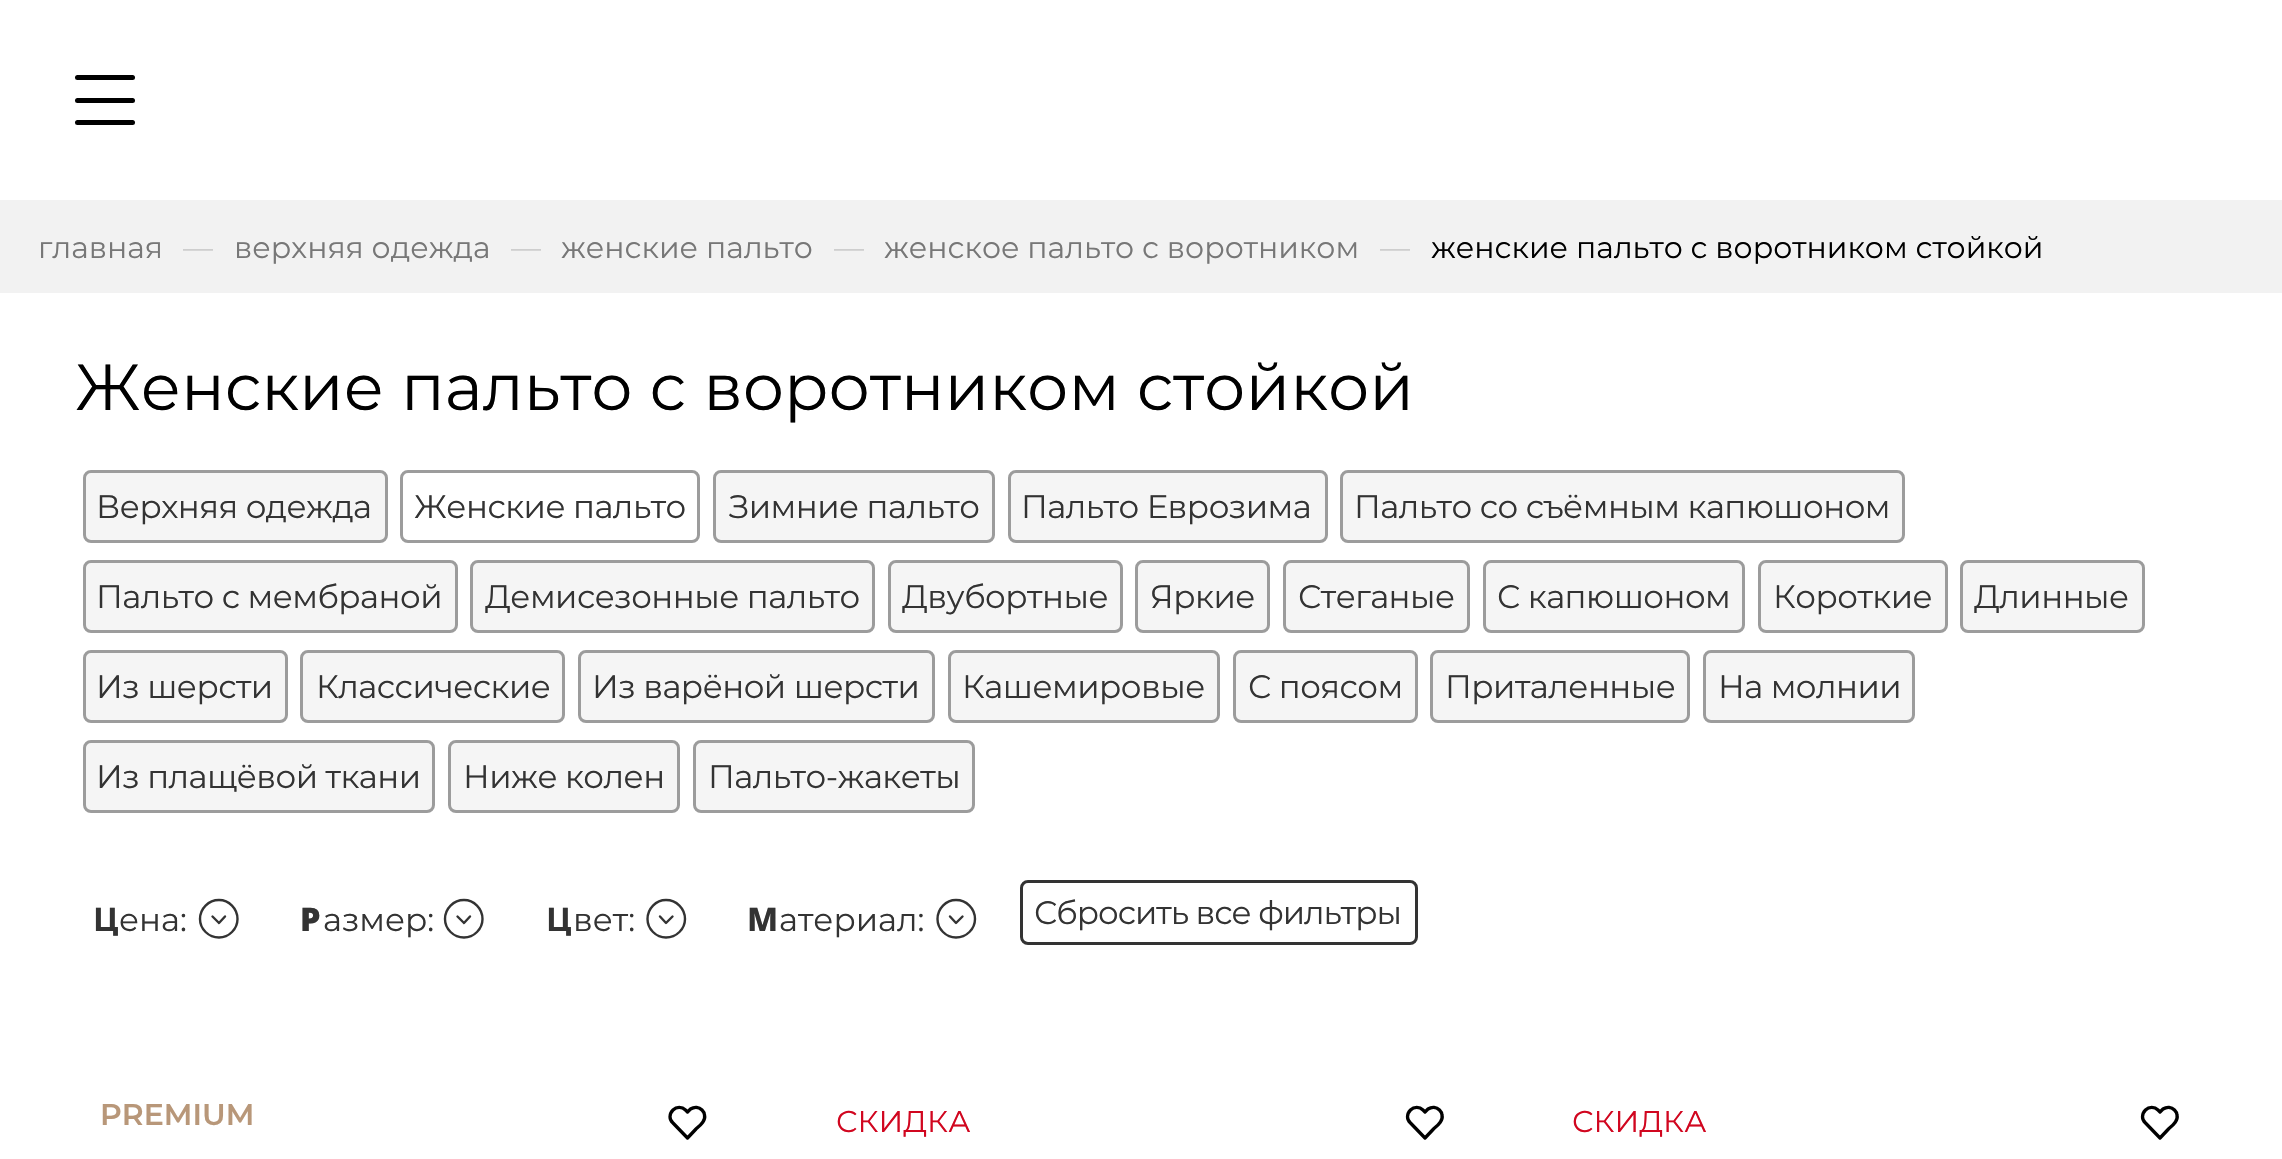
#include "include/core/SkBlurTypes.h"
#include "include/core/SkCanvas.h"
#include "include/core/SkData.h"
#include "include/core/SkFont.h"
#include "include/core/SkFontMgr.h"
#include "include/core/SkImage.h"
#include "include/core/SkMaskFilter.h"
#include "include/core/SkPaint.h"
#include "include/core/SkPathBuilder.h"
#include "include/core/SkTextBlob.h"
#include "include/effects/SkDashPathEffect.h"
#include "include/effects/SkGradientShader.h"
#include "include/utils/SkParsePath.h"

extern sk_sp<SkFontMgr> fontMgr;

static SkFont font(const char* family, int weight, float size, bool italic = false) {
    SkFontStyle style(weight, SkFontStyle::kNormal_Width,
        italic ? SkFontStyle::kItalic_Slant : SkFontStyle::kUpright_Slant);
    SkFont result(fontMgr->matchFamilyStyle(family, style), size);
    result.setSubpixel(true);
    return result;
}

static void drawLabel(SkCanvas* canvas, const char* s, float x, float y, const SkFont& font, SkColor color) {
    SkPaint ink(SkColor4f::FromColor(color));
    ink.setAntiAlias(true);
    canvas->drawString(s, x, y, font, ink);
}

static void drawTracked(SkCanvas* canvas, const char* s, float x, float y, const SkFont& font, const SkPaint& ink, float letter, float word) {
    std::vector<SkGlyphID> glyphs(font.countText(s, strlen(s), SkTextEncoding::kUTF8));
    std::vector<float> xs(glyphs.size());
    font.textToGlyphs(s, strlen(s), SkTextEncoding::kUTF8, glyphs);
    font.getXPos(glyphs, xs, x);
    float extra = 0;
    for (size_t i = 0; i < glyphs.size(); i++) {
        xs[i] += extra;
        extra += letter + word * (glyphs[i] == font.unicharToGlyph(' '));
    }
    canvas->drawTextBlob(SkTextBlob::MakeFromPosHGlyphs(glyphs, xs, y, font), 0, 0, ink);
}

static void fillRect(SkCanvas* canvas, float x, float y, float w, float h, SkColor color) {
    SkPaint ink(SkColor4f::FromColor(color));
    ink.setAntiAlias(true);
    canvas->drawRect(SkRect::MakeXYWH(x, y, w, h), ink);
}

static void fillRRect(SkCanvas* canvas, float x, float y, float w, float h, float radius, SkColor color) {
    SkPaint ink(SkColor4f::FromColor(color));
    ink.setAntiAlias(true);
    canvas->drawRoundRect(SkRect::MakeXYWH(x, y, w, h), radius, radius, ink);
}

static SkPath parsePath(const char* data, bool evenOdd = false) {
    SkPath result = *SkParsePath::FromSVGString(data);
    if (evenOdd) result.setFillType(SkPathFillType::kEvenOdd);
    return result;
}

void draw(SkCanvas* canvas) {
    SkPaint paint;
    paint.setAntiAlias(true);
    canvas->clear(0xFFFFFFFF);
    fillRRect(canvas, 75, 75, 60, 5, 2.5f, 0xFF000000);
    fillRRect(canvas, 75, 98, 60, 5, 2.5f, 0xFF000000);
    fillRRect(canvas, 75, 120, 60, 5, 2.5f, 0xFF000000);
    fillRect(canvas, 0, 200, 2282, 93, 0xFFF2F2F2);
    SkFont font1 = font("Montserrat", 400, 30);
    drawLabel(canvas, "главная", 38, 258, font1, 0xFF777777);
    drawLabel(canvas, "—", 183, 258, font1, 0xFFCCCCCC);
    drawLabel(canvas, "верхняя одежда", 234, 258, font1, 0xFF777777);
    drawLabel(canvas, "—", 511, 258, font1, 0xFFCCCCCC);
    drawLabel(canvas, "женские пальто", 561, 258, font1, 0xFF777777);
    drawLabel(canvas, "—", 834, 258, font1, 0xFFCCCCCC);
    drawLabel(canvas, "женское пальто с воротником", 884, 258, font1, 0xFF777777);
    drawLabel(canvas, "—", 1380, 258, font1, 0xFFCCCCCC);
    drawLabel(canvas, "женские пальто с воротником стойкой", 1431, 258, font1, 0xFF000000);
    SkFont font2 = font("Montserrat", 400, 65);
    drawLabel(canvas, "Женские пальто с воротником стойкой", 75, 410, font2, 0xFF000000);
    paint.setColor(0xFFF5F5F5);
    canvas->drawRoundRect(SkRect::MakeXYWH(84.5f, 471.5f, 302, 70), 6.5f, 6.5f, paint);
    paint.setStroke(true);
    paint.setStrokeWidth(3);
    paint.setColor(0xFF9C9C9C);
    canvas->drawRoundRect(SkRect::MakeXYWH(84.5f, 471.5f, 302, 70), 6.5f, 6.5f, paint);
    SkFont font3 = font("Montserrat", 400, 32.5f);
    paint.setStroke(false);
    paint.setColor(0xFF333333);
    drawTracked(canvas, "Верхняя одежда", 96, 518, font3, paint, -0.5f, 0);
    paint.setStroke(true);
    paint.setColor(0xFF9C9C9C);
    canvas->drawRoundRect(SkRect::MakeXYWH(401.5f, 471.5f, 297, 70), 6.5f, 6.5f, paint);
    paint.setStroke(false);
    paint.setColor(0xFF333333);
    drawTracked(canvas, "Женские пальто", 414, 518, font3, paint, -0.5f, 0);
    paint.setColor(0xFFF5F5F5);
    canvas->drawRoundRect(SkRect::MakeXYWH(714.5f, 471.5f, 279, 70), 6.5f, 6.5f, paint);
    paint.setStroke(true);
    paint.setColor(0xFF9C9C9C);
    canvas->drawRoundRect(SkRect::MakeXYWH(714.5f, 471.5f, 279, 70), 6.5f, 6.5f, paint);
    paint.setStroke(false);
    paint.setColor(0xFF333333);
    drawTracked(canvas, "Зимние пальто", 729, 518, font3, paint, -0.5f, 0);
    paint.setColor(0xFFF5F5F5);
    canvas->drawRoundRect(SkRect::MakeXYWH(1009.5f, 471.5f, 317, 70), 6.5f, 6.5f, paint);
    paint.setStroke(true);
    paint.setColor(0xFF9C9C9C);
    canvas->drawRoundRect(SkRect::MakeXYWH(1009.5f, 471.5f, 317, 70), 6.5f, 6.5f, paint);
    paint.setStroke(false);
    paint.setColor(0xFF333333);
    drawTracked(canvas, "Пальто Еврозима", 1021, 518, font3, paint, -0.5f, 0);
    paint.setColor(0xFFF5F5F5);
    canvas->drawRoundRect(SkRect::MakeXYWH(1341.5f, 471.5f, 562, 70), 6.5f, 6.5f, paint);
    paint.setStroke(true);
    paint.setColor(0xFF9C9C9C);
    canvas->drawRoundRect(SkRect::MakeXYWH(1341.5f, 471.5f, 562, 70), 6.5f, 6.5f, paint);
    paint.setStroke(false);
    paint.setColor(0xFF333333);
    drawTracked(canvas, "Пальто со съёмным капюшоном", 1354, 518, font3, paint, -0.5f, 0);
    paint.setColor(0xFFF5F5F5);
    canvas->drawRoundRect(SkRect::MakeXYWH(84.5f, 561.5f, 372, 70), 6.5f, 6.5f, paint);
    paint.setStroke(true);
    paint.setColor(0xFF9C9C9C);
    canvas->drawRoundRect(SkRect::MakeXYWH(84.5f, 561.5f, 372, 70), 6.5f, 6.5f, paint);
    paint.setStroke(false);
    paint.setColor(0xFF333333);
    drawTracked(canvas, "Пальто с мембраной", 96, 608, font3, paint, -0.5f, 0);
    paint.setColor(0xFFF5F5F5);
    canvas->drawRoundRect(SkRect::MakeXYWH(471.5f, 561.5f, 402, 70), 6.5f, 6.5f, paint);
    paint.setStroke(true);
    paint.setColor(0xFF9C9C9C);
    canvas->drawRoundRect(SkRect::MakeXYWH(471.5f, 561.5f, 402, 70), 6.5f, 6.5f, paint);
    paint.setStroke(false);
    paint.setColor(0xFF333333);
    drawTracked(canvas, "Демисезонные пальто", 485, 608, font3, paint, -0.5f, 0);
    paint.setColor(0xFFF5F5F5);
    canvas->drawRoundRect(SkRect::MakeXYWH(889.5f, 561.5f, 232, 70), 6.5f, 6.5f, paint);
    paint.setStroke(true);
    paint.setColor(0xFF9C9C9C);
    canvas->drawRoundRect(SkRect::MakeXYWH(889.5f, 561.5f, 232, 70), 6.5f, 6.5f, paint);
    paint.setStroke(false);
    paint.setColor(0xFF333333);
    drawTracked(canvas, "Двубортные", 902, 608, font3, paint, -0.5f, 0);
    paint.setColor(0xFFF5F5F5);
    canvas->drawRoundRect(SkRect::MakeXYWH(1136.5f, 561.5f, 132, 70), 6.5f, 6.5f, paint);
    paint.setStroke(true);
    paint.setColor(0xFF9C9C9C);
    canvas->drawRoundRect(SkRect::MakeXYWH(1136.5f, 561.5f, 132, 70), 6.5f, 6.5f, paint);
    paint.setStroke(false);
    paint.setColor(0xFF333333);
    drawTracked(canvas, "Яркие", 1150, 608, font3, paint, -0.5f, 0);
    paint.setColor(0xFFF5F5F5);
    canvas->drawRoundRect(SkRect::MakeXYWH(1284.5f, 561.5f, 184, 70), 6.5f, 6.5f, paint);
    paint.setStroke(true);
    paint.setColor(0xFF9C9C9C);
    canvas->drawRoundRect(SkRect::MakeXYWH(1284.5f, 561.5f, 184, 70), 6.5f, 6.5f, paint);
    paint.setStroke(false);
    paint.setColor(0xFF333333);
    drawTracked(canvas, "Стеганые", 1298, 608, font3, paint, -0.5f, 0);
    paint.setColor(0xFFF5F5F5);
    canvas->drawRoundRect(SkRect::MakeXYWH(1484.5f, 561.5f, 259, 70), 6.5f, 6.5f, paint);
    paint.setStroke(true);
    paint.setColor(0xFF9C9C9C);
    canvas->drawRoundRect(SkRect::MakeXYWH(1484.5f, 561.5f, 259, 70), 6.5f, 6.5f, paint);
    paint.setStroke(false);
    paint.setColor(0xFF333333);
    drawTracked(canvas, "С капюшоном", 1497, 608, font3, paint, -0.5f, 0);
    paint.setColor(0xFFF5F5F5);
    canvas->drawRoundRect(SkRect::MakeXYWH(1759.5f, 561.5f, 187, 70), 6.5f, 6.5f, paint);
    paint.setStroke(true);
    paint.setColor(0xFF9C9C9C);
    canvas->drawRoundRect(SkRect::MakeXYWH(1759.5f, 561.5f, 187, 70), 6.5f, 6.5f, paint);
    paint.setStroke(false);
    paint.setColor(0xFF333333);
    drawTracked(canvas, "Короткие", 1773, 608, font3, paint, -0.5f, 0);
    paint.setColor(0xFFF5F5F5);
    canvas->drawRoundRect(SkRect::MakeXYWH(1961.5f, 561.5f, 182, 70), 6.5f, 6.5f, paint);
    paint.setStroke(true);
    paint.setColor(0xFF9C9C9C);
    canvas->drawRoundRect(SkRect::MakeXYWH(1961.5f, 561.5f, 182, 70), 6.5f, 6.5f, paint);
    paint.setStroke(false);
    paint.setColor(0xFF333333);
    drawTracked(canvas, "Длинные", 1974, 608, font3, paint, -0.5f, 0);
    paint.setColor(0xFFF5F5F5);
    canvas->drawRoundRect(SkRect::MakeXYWH(84.5f, 651.5f, 202, 70), 6.5f, 6.5f, paint);
    paint.setStroke(true);
    paint.setColor(0xFF9C9C9C);
    canvas->drawRoundRect(SkRect::MakeXYWH(84.5f, 651.5f, 202, 70), 6.5f, 6.5f, paint);
    paint.setStroke(false);
    paint.setColor(0xFF333333);
    drawTracked(canvas, "Из шерсти", 96, 698, font3, paint, -0.5f, 0);
    paint.setColor(0xFFF5F5F5);
    canvas->drawRoundRect(SkRect::MakeXYWH(301.5f, 651.5f, 262, 70), 6.5f, 6.5f, paint);
    paint.setStroke(true);
    paint.setColor(0xFF9C9C9C);
    canvas->drawRoundRect(SkRect::MakeXYWH(301.5f, 651.5f, 262, 70), 6.5f, 6.5f, paint);
    paint.setStroke(false);
    paint.setColor(0xFF333333);
    drawTracked(canvas, "Классические", 316, 698, font3, paint, -0.5f, 0);
    paint.setColor(0xFFF5F5F5);
    canvas->drawRoundRect(SkRect::MakeXYWH(579.5f, 651.5f, 354, 70), 6.5f, 6.5f, paint);
    paint.setStroke(true);
    paint.setColor(0xFF9C9C9C);
    canvas->drawRoundRect(SkRect::MakeXYWH(579.5f, 651.5f, 354, 70), 6.5f, 6.5f, paint);
    paint.setStroke(false);
    paint.setColor(0xFF333333);
    drawTracked(canvas, "Из варёной шерсти", 592, 698, font3, paint, -0.5f, 0);
    paint.setColor(0xFFF5F5F5);
    canvas->drawRoundRect(SkRect::MakeXYWH(949.5f, 651.5f, 269, 70), 6.5f, 6.5f, paint);
    paint.setStroke(true);
    paint.setColor(0xFF9C9C9C);
    canvas->drawRoundRect(SkRect::MakeXYWH(949.5f, 651.5f, 269, 70), 6.5f, 6.5f, paint);
    paint.setStroke(false);
    paint.setColor(0xFF333333);
    drawTracked(canvas, "Кашемировые", 962, 698, font3, paint, -0.5f, 0);
    paint.setColor(0xFFF5F5F5);
    canvas->drawRoundRect(SkRect::MakeXYWH(1234.5f, 651.5f, 182, 70), 6.5f, 6.5f, paint);
    paint.setStroke(true);
    paint.setColor(0xFF9C9C9C);
    canvas->drawRoundRect(SkRect::MakeXYWH(1234.5f, 651.5f, 182, 70), 6.5f, 6.5f, paint);
    paint.setStroke(false);
    paint.setColor(0xFF333333);
    drawTracked(canvas, "С поясом", 1248, 698, font3, paint, -0.5f, 0);
    paint.setColor(0xFFF5F5F5);
    canvas->drawRoundRect(SkRect::MakeXYWH(1431.5f, 651.5f, 257, 70), 6.5f, 6.5f, paint);
    paint.setStroke(true);
    paint.setColor(0xFF9C9C9C);
    canvas->drawRoundRect(SkRect::MakeXYWH(1431.5f, 651.5f, 257, 70), 6.5f, 6.5f, paint);
    paint.setStroke(false);
    paint.setColor(0xFF333333);
    drawTracked(canvas, "Приталенные", 1445, 698, font3, paint, -0.5f, 0);
    paint.setColor(0xFFF5F5F5);
    canvas->drawRoundRect(SkRect::MakeXYWH(1704.5f, 651.5f, 209, 70), 6.5f, 6.5f, paint);
    paint.setStroke(true);
    paint.setColor(0xFF9C9C9C);
    canvas->drawRoundRect(SkRect::MakeXYWH(1704.5f, 651.5f, 209, 70), 6.5f, 6.5f, paint);
    paint.setStroke(false);
    paint.setColor(0xFF333333);
    drawTracked(canvas, "На молнии", 1718, 698, font3, paint, -0.5f, 0);
    paint.setColor(0xFFF5F5F5);
    canvas->drawRoundRect(SkRect::MakeXYWH(84.5f, 741.5f, 349, 70), 6.5f, 6.5f, paint);
    paint.setStroke(true);
    paint.setColor(0xFF9C9C9C);
    canvas->drawRoundRect(SkRect::MakeXYWH(84.5f, 741.5f, 349, 70), 6.5f, 6.5f, paint);
    paint.setStroke(false);
    paint.setColor(0xFF333333);
    drawTracked(canvas, "Из плащёвой ткани", 96, 788, font3, paint, -0.5f, 0);
    paint.setColor(0xFFF5F5F5);
    canvas->drawRoundRect(SkRect::MakeXYWH(449.5f, 741.5f, 229, 70), 6.5f, 6.5f, paint);
    paint.setStroke(true);
    paint.setColor(0xFF9C9C9C);
    canvas->drawRoundRect(SkRect::MakeXYWH(449.5f, 741.5f, 229, 70), 6.5f, 6.5f, paint);
    paint.setStroke(false);
    paint.setColor(0xFF333333);
    drawTracked(canvas, "Ниже колен", 463, 788, font3, paint, -0.5f, 0);
    paint.setColor(0xFFF5F5F5);
    canvas->drawRoundRect(SkRect::MakeXYWH(694.5f, 741.5f, 279, 70), 6.5f, 6.5f, paint);
    paint.setStroke(true);
    paint.setColor(0xFF9C9C9C);
    canvas->drawRoundRect(SkRect::MakeXYWH(694.5f, 741.5f, 279, 70), 6.5f, 6.5f, paint);
    paint.setStroke(false);
    paint.setColor(0xFF333333);
    drawTracked(canvas, "Пальто-жакеты", 708, 788, font3, paint, -0.5f, 0);
    SkFont font4 = font("Noto Sans", 700, 32.5f);
    drawLabel(canvas, "Ц", 93, 931, font4, 0xFF333333);
    drawLabel(canvas, "ена:", 119, 931, font3, 0xFF333333);
    paint.setStroke(true);
    paint.setStrokeWidth(2.4f);
    paint.setStrokeCap(SkPaint::kRound_Cap);
    paint.setStrokeJoin(SkPaint::kRound_Join);
    canvas->drawPath(parsePath("M225 916.5L219 923L212.5 916.5M237.5 919C237.5 908.5 229 900 219 900C208.5 900 200 908.5 200 919C200 929 208.5 937.5 219 937.5C229 937.5 237.5 929 237.5 919Z"), paint);
    SkFont font5 = font("Noto Sans", 900, 32.5f);
    drawLabel(canvas, "Р", 300, 931, font5, 0xFF333333);
    drawLabel(canvas, "азмер:", 323, 931, font3, 0xFF333333);
    canvas->drawPath(parsePath("M470 916.5L464 923L457.5 916.5M482.5 919C482.5 908.5 474 900 464 900C453.5 900 445 908.5 445 919C445 929 453.5 937.5 464 937.5C474 937.5 482.5 929 482.5 919Z"), paint);
    drawLabel(canvas, "Ц", 546, 931, font4, 0xFF333333);
    drawLabel(canvas, "вет:", 573, 931, font3, 0xFF333333);
    canvas->drawPath(parsePath("M672.5 916.5L666 923L660 916.5M685 919C685 908.5 676.5 900 666 900C656 900 647.5 908.5 647.5 919C647.5 929 656 937.5 666 937.5C676.5 937.5 685 929 685 919Z"), paint);
    SkFont font6 = font("Noto Sans", 800, 32.5f);
    drawLabel(canvas, "М", 747, 931, font6, 0xFF333333);
    drawLabel(canvas, "атериал:", 779, 931, font3, 0xFF333333);
    canvas->drawPath(parsePath("M962.5 916.5L956 923L950 916.5M975 919C975 908.5 966.5 900 956 900C946 900 937.5 908.5 937.5 919C937.5 929 946 937.5 956 937.5C966.5 937.5 975 929 975 919Z"), paint);
    paint.setStrokeWidth(3);
    paint.setStrokeCap(SkPaint::kButt_Cap);
    paint.setStrokeJoin(SkPaint::kMiter_Join);
    canvas->drawRoundRect(SkRect::MakeXYWH(1021.5f, 881.5f, 395, 62), 6.5f, 6.5f, paint);
    paint.setStroke(false);
    drawTracked(canvas, "Сбросить все фильтры", 1034, 924, font3, paint, -1, 0);
    SkFont font7 = font("Montserrat", 600, 30);
    drawLabel(canvas, "PREMIUM", 100, 1125, font7, 0xFFB89779);
    paint.setStroke(true);
    paint.setStrokeWidth(3.3f);
    paint.setStrokeCap(SkPaint::kRound_Cap);
    paint.setStrokeJoin(SkPaint::kRound_Join);
    paint.setColor(0xFF000000);
    canvas->drawPath(parsePath("M702 1110C699 1107 694.5 1106.5 690.5 1109L687.5 1112L685.5 1110C682 1106.5 676.5 1106.5 673 1110C669 1114 669 1119.5 673 1123L687.5 1138L696 1129C700 1125.5 706 1121 704.5 1115C704.5 1113 703.5 1111.5 702 1110Z"), paint);
    drawLabel(canvas, "СКИДКА", 836, 1132, font1, 0xFFD1061F);
    canvas->drawPath(parsePath("M1439.5 1110C1436.5 1107 1432 1106.5 1428 1109L1425 1112L1423 1110C1419.5 1106.5 1414 1106.5 1410.5 1110C1406.5 1114 1406.5 1119.5 1410.5 1123L1425 1138L1433.5 1129C1437.5 1125.5 1443.5 1121 1442 1115C1442 1113 1441 1111.5 1439.5 1110Z"), paint);
    drawLabel(canvas, "СКИДКА", 1572, 1132, font1, 0xFFD1061F);
    canvas->drawPath(parsePath("M2174.5 1110C2171.5 1107 2167 1106.5 2163 1109L2160 1112L2158 1110C2154.5 1106.5 2149 1106.5 2145.5 1110C2141.5 1114 2141.5 1119.5 2145.5 1123L2160 1138L2168.5 1129C2172.5 1125.5 2178.5 1121 2177 1115C2177 1113 2176 1111.5 2174.5 1110Z"), paint);
}
